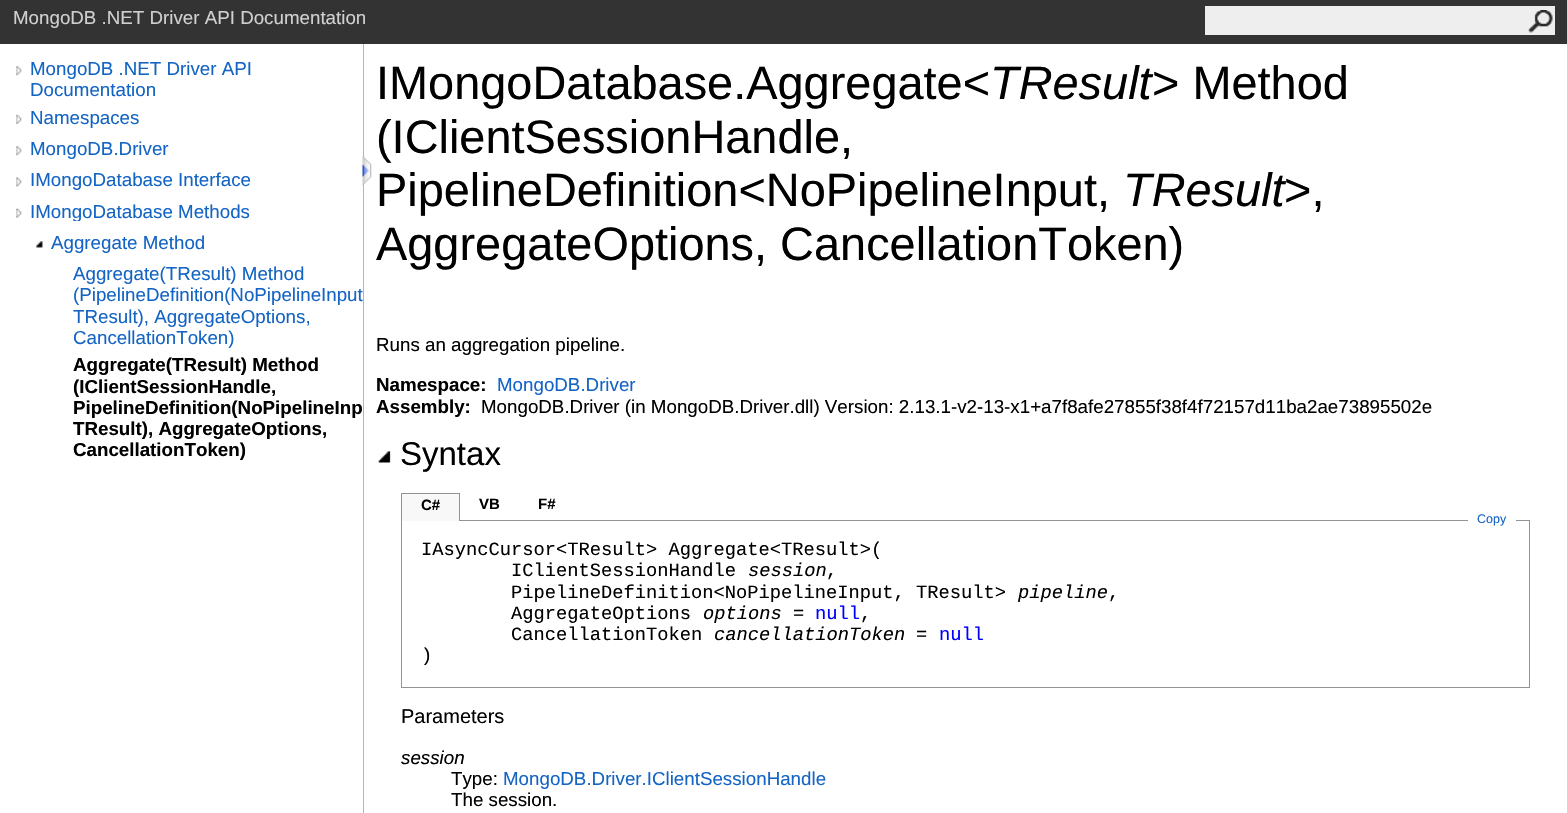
#include "include/core/SkBlurTypes.h"
#include "include/core/SkCanvas.h"
#include "include/core/SkData.h"
#include "include/core/SkFont.h"
#include "include/core/SkFontMgr.h"
#include "include/core/SkImage.h"
#include "include/core/SkMaskFilter.h"
#include "include/core/SkPaint.h"
#include "include/core/SkPathBuilder.h"
#include "include/core/SkTextBlob.h"
#include "include/effects/SkDashPathEffect.h"
#include "include/effects/SkGradientShader.h"
#include "include/utils/SkParsePath.h"

extern sk_sp<SkFontMgr> fontMgr;

static SkFont font(const char* family, int weight, float size, bool italic = false) {
    SkFontStyle style(weight, SkFontStyle::kNormal_Width,
        italic ? SkFontStyle::kItalic_Slant : SkFontStyle::kUpright_Slant);
    SkFont result(fontMgr->matchFamilyStyle(family, style), size);
    result.setSubpixel(true);
    return result;
}

static void drawLabel(SkCanvas* canvas, const char* s, float x, float y, const SkFont& font, SkColor color) {
    SkPaint ink(SkColor4f::FromColor(color));
    ink.setAntiAlias(true);
    canvas->drawString(s, x, y, font, ink);
}

static void fillRect(SkCanvas* canvas, float x, float y, float w, float h, SkColor color) {
    SkPaint ink(SkColor4f::FromColor(color));
    ink.setAntiAlias(true);
    canvas->drawRect(SkRect::MakeXYWH(x, y, w, h), ink);
}

static void drawPhoto(SkCanvas* canvas, const char* path, float x, float y, float w, float h) {
    auto image = SkImages::DeferredFromEncodedData(SkData::MakeFromFileName(path));
    canvas->drawImageRect(image, SkRect::MakeXYWH(x, y, w, h), SkSamplingOptions());
}

void draw(SkCanvas* canvas) {
    SkPaint paint;
    paint.setAntiAlias(true);
    canvas->clear(0xFFFFFFFF);
    fillRect(canvas, 0, 0, 1567, 44, 0xFF333333);
    SkFont font1 = font("Liberation Sans", 400, 18.75f);
    drawLabel(canvas, "MongoDB .NET Driver API Documentation", 13, 24, font1, 0xFFD0D0D0);
    fillRect(canvas, 1205, 6, 350, 29, 0xFFEEEEEE);
    drawPhoto(canvas, "assets/img1.png", 1528, 10, 25, 23);
    fillRect(canvas, 363, 44, 1, 769, 0xFFB6B6B6);
    drawPhoto(canvas, "assets/img2.png", 16, 66, 6, 10);
    drawLabel(canvas, "MongoDB .NET Driver API", 30, 75, font1, 0xFF1364C4);
    drawLabel(canvas, "Documentation", 30, 96, font1, 0xFF1364C4);
    drawPhoto(canvas, "assets/img3.png", 16, 114, 6, 10);
    drawLabel(canvas, "Namespaces", 30, 124, font1, 0xFF1364C4);
    drawPhoto(canvas, "assets/img2.png", 16, 146, 6, 10);
    drawLabel(canvas, "MongoDB.Driver", 30, 155, font1, 0xFF1364C4);
    drawPhoto(canvas, "assets/img4.png", 16, 177, 6, 10);
    drawLabel(canvas, "IMongoDatabase Interface", 30, 186, font1, 0xFF1364C4);
    drawPhoto(canvas, "assets/img5.png", 16, 208, 6, 10);
    canvas->save();
    canvas->clipRect(SkRect::MakeXYWH(30, 200, 333, 21));
    drawLabel(canvas, "IMongoDatabase Methods", 30, 218, font1, 0xFF1364C4);
    canvas->restore();
    drawPhoto(canvas, "assets/img6.png", 36, 241, 7, 7);
    drawLabel(canvas, "Aggregate Method", 51, 249, font1, 0xFF1364C4);
    drawLabel(canvas, "Aggregate(TResult) Method", 73, 280, font1, 0xFF1364C4);
    drawLabel(canvas, "(PipelineDefinition(NoPipelineInput", 73, 301, font1, 0xFF1364C4);
    drawLabel(canvas, "TResult), AggregateOptions,", 73, 323, font1, 0xFF1364C4);
    drawLabel(canvas, "CancellationToken)", 73, 344, font1, 0xFF1364C4);
    SkFont font2 = font("Liberation Sans", 700, 18.75f);
    drawLabel(canvas, "Aggregate(TResult) Method", 73, 371, font2, 0xFF000000);
    drawLabel(canvas, "(IClientSessionHandle,", 73, 393, font2, 0xFF000000);
    drawLabel(canvas, "PipelineDefinition(NoPipelineInp", 73, 414, font2, 0xFF000000);
    drawLabel(canvas, "TResult), AggregateOptions,", 73, 435, font2, 0xFF000000);
    drawLabel(canvas, "CancellationToken)", 73, 456, font2, 0xFF000000);
    drawPhoto(canvas, "assets/img7.png", 362, 156, 10, 29);
    SkFont font3 = font("Liberation Sans", 400, 46.9f);
    drawLabel(canvas, "IMongoDatabase.Aggregate<", 376, 99, font3, 0xFF000000);
    SkFont font4 = font("Liberation Sans", 400, 46.9f, true);
    drawLabel(canvas, "TResult", 990, 99, font4, 0xFF000000);
    drawLabel(canvas, "> Method", 1152, 99, font3, 0xFF000000);
    drawLabel(canvas, "(IClientSessionHandle,", 376, 153, font3, 0xFF000000);
    drawLabel(canvas, "PipelineDefinition<NoPipelineInput,", 376, 206, font3, 0xFF000000);
    drawLabel(canvas, "TResult", 1123, 206, font4, 0xFF000000);
    drawLabel(canvas, ">,", 1284, 206, font3, 0xFF000000);
    drawLabel(canvas, "AggregateOptions, CancellationToken)", 376, 260, font3, 0xFF000000);
    drawLabel(canvas, "Runs an aggregation pipeline.", 376, 351, font1, 0xFF000000);
    drawLabel(canvas, "Namespace:", 376, 391, font2, 0xFF000000);
    drawLabel(canvas, "MongoDB.Driver", 497, 391, font1, 0xFF1364C4);
    drawLabel(canvas, "Assembly:", 376, 413, font2, 0xFF000000);
    drawLabel(canvas, "MongoDB.Driver (in MongoDB.Driver.dll) Version: 2.13.1-v2-13-x1+a7f8afe27855f38f4f72157d11ba2ae73895502e", 481, 413, font1, 0xFF000000);
    drawPhoto(canvas, "assets/img8.png", 378, 451, 13, 12);
    SkFont font5 = font("Liberation Sans", 400, 33);
    drawLabel(canvas, "Syntax", 400, 465, font5, 0xFF000000);
    paint.setStroke(true);
    paint.setStrokeWidth(1);
    paint.setColor(0xFF939393);
    canvas->drawRect(SkRect::MakeXYWH(401.5f, 520.5f, 1128, 167), paint);
    fillRect(canvas, 402, 494, 57, 27, 0xFFF8F8F8);
    fillRect(canvas, 401, 493, 59, 1, 0xFF939393);
    fillRect(canvas, 459, 493, 1, 28, 0xFF939393);
    fillRect(canvas, 401, 493, 1, 28, 0xFF939393);
    SkFont font6 = font("Liberation Sans", 700, 15);
    drawLabel(canvas, "C#", 421, 510, font6, 0xFF000000);
    drawLabel(canvas, "VB", 479, 509, font6, 0xFF000000);
    drawLabel(canvas, "F#", 538, 509, font6, 0xFF000000);
    fillRect(canvas, 1468, 520, 48, 1, 0xFFFFFFFF);
    SkFont font7 = font("Liberation Sans", 400, 12.5f);
    drawLabel(canvas, "Copy", 1477, 523, font7, 0xFF1364C4);
    SkFont font8 = font("Liberation Mono", 400, 18.75f);
    drawLabel(canvas, "IAsyncCursor<TResult> Aggregate<TResult>(", 421, 555, font8, 0xFF000000);
    drawLabel(canvas, "IClientSessionHandle", 511, 576, font8, 0xFF000000);
    SkFont font9 = font("Liberation Mono", 400, 18.75f, true);
    drawLabel(canvas, "session", 748, 576, font9, 0xFF000000);
    drawLabel(canvas, ",", 826, 576, font8, 0xFF000000);
    drawLabel(canvas, "PipelineDefinition<NoPipelineInput, TResult>", 511, 598, font8, 0xFF000000);
    drawLabel(canvas, "pipeline", 1018, 598, font9, 0xFF000000);
    drawLabel(canvas, ",", 1108, 598, font8, 0xFF000000);
    drawLabel(canvas, "AggregateOptions", 511, 619, font8, 0xFF000000);
    drawLabel(canvas, "options", 703, 619, font9, 0xFF000000);
    drawLabel(canvas, "=", 793, 619, font8, 0xFF000000);
    drawLabel(canvas, "null", 815, 619, font8, 0xFF0000FF);
    drawLabel(canvas, ",", 860, 619, font8, 0xFF000000);
    drawLabel(canvas, "CancellationToken", 511, 640, font8, 0xFF000000);
    drawLabel(canvas, "cancellationToken", 714, 640, font9, 0xFF000000);
    drawLabel(canvas, "=", 916, 640, font8, 0xFF000000);
    drawLabel(canvas, "null", 939, 640, font8, 0xFF0000FF);
    drawLabel(canvas, ")", 421, 661, font8, 0xFF000000);
    SkFont font10 = font("Liberation Sans", 400, 20);
    drawLabel(canvas, "Parameters", 401, 723, font10, 0xFF000000);
    SkFont font11 = font("Liberation Sans", 400, 18.75f, true);
    drawLabel(canvas, "session", 401, 764, font11, 0xFF000000);
    drawLabel(canvas, "Type:", 451, 785, font1, 0xFF000000);
    drawLabel(canvas, "MongoDB.Driver.IClientSessionHandle", 503, 785, font1, 0xFF1364C4);
    drawLabel(canvas, "The session.", 451, 806, font1, 0xFF000000);
}
